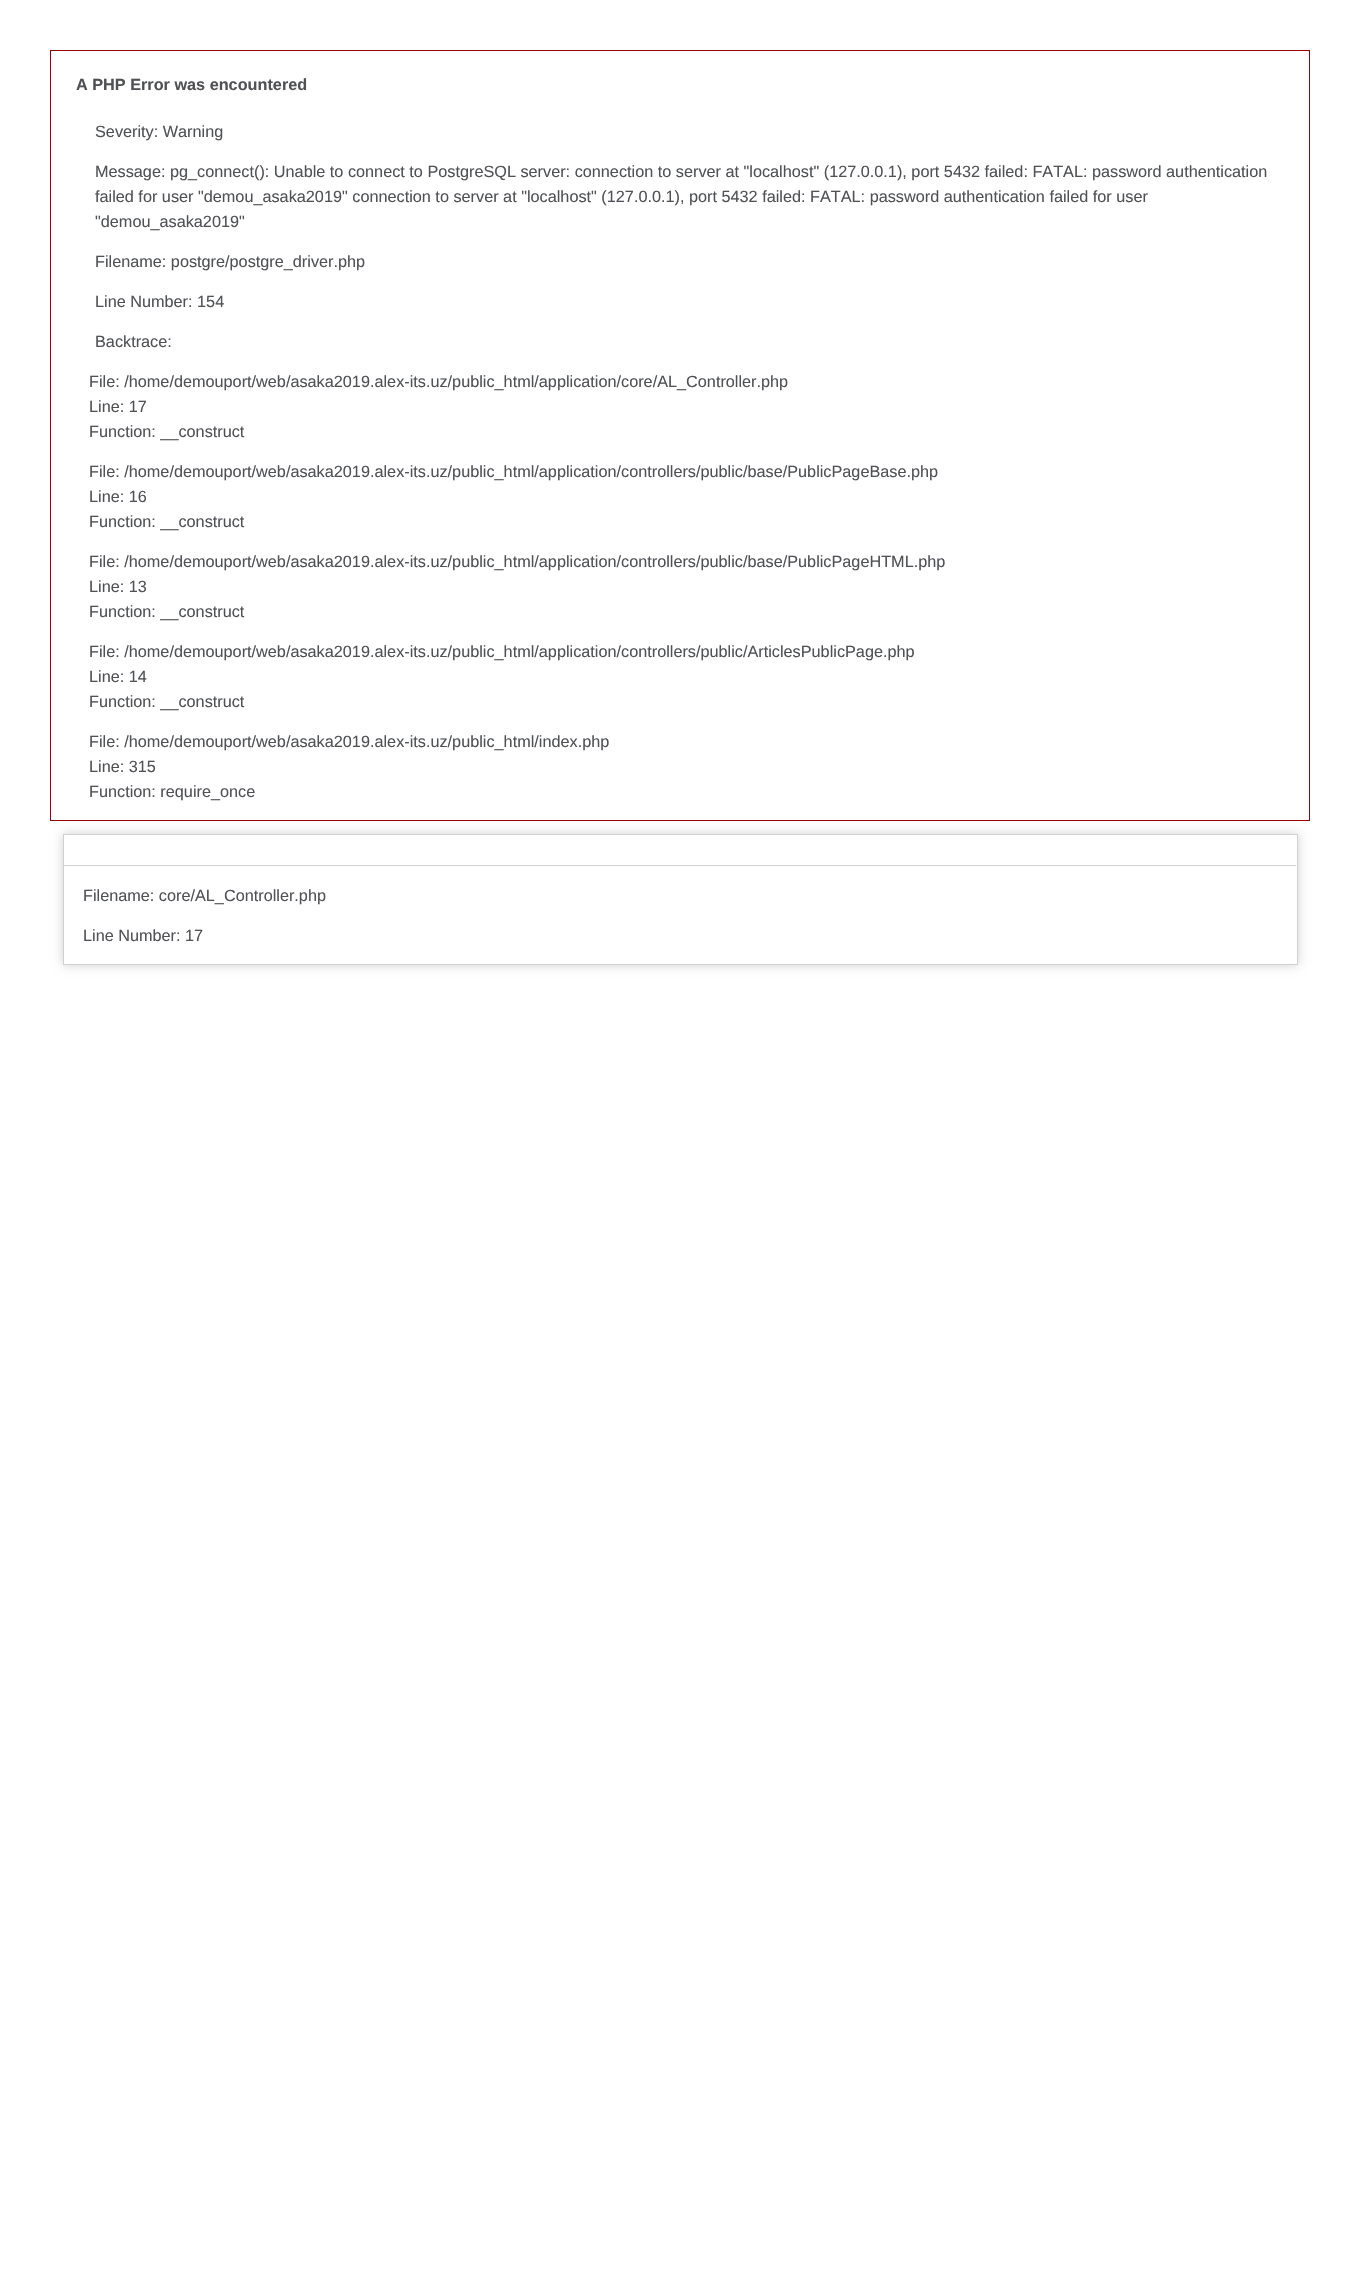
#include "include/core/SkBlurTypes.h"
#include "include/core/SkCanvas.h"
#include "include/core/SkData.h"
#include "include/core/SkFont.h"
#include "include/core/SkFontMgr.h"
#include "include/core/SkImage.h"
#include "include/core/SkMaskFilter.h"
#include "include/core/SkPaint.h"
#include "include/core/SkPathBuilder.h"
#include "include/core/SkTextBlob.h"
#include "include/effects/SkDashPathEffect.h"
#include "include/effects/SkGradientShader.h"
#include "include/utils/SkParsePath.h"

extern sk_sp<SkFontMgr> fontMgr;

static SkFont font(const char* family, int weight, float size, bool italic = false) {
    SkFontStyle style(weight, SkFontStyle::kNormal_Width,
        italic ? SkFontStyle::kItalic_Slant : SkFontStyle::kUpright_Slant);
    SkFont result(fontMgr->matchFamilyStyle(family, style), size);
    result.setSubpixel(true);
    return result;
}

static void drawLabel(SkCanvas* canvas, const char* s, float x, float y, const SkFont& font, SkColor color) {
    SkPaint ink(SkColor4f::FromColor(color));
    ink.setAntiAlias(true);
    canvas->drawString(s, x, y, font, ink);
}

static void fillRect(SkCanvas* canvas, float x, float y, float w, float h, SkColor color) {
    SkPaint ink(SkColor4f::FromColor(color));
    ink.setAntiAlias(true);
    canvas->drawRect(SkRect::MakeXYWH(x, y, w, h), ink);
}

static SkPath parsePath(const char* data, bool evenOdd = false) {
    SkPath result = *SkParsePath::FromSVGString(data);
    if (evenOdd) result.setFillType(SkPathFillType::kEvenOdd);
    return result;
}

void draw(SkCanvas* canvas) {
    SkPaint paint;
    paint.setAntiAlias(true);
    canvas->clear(0xFFFFFFFF);
    paint.setStroke(true);
    paint.setStrokeWidth(1);
    paint.setColor(0xFF990000);
    canvas->drawRect(SkRect::MakeXYWH(50.5f, 50.5f, 1259, 770), paint);
    SkFont font1 = font("Liberation Sans", 700, 16.25f);
    drawLabel(canvas, "A PHP Error was encountered", 76, 90, font1, 0xFF4F5155);
    SkFont font2 = font("Liberation Sans", 400, 16.25f);
    drawLabel(canvas, "Severity: Warning", 95, 137, font2, 0xFF4F5155);
    drawLabel(canvas, "Message: pg_connect(): Unable to connect to PostgreSQL server: connection to server at \"localhost\" (127.0.0.1), port 5432 failed: FATAL: password authentication", 95, 177, font2, 0xFF4F5155);
    drawLabel(canvas, "failed for user \"demou_asaka2019\" connection to server at \"localhost\" (127.0.0.1), port 5432 failed: FATAL: password authentication failed for user", 95, 202, font2, 0xFF4F5155);
    drawLabel(canvas, "\"demou_asaka2019\"", 95, 227, font2, 0xFF4F5155);
    drawLabel(canvas, "Filename: postgre/postgre_driver.php", 95, 267, font2, 0xFF4F5155);
    drawLabel(canvas, "Line Number: 154", 95, 307, font2, 0xFF4F5155);
    drawLabel(canvas, "Backtrace:", 95, 347, font2, 0xFF4F5155);
    drawLabel(canvas, "File: /home/demouport/web/asaka2019.alex-its.uz/public_html/application/core/AL_Controller.php", 89, 387, font2, 0xFF4F5155);
    drawLabel(canvas, "Line: 17", 89, 412, font2, 0xFF4F5155);
    drawLabel(canvas, "Function: __construct", 89, 437, font2, 0xFF4F5155);
    drawLabel(canvas, "File: /home/demouport/web/asaka2019.alex-its.uz/public_html/application/controllers/public/base/PublicPageBase.php", 89, 477, font2, 0xFF4F5155);
    drawLabel(canvas, "Line: 16", 89, 502, font2, 0xFF4F5155);
    drawLabel(canvas, "Function: __construct", 89, 527, font2, 0xFF4F5155);
    drawLabel(canvas, "File: /home/demouport/web/asaka2019.alex-its.uz/public_html/application/controllers/public/base/PublicPageHTML.php", 89, 567, font2, 0xFF4F5155);
    drawLabel(canvas, "Line: 13", 89, 592, font2, 0xFF4F5155);
    drawLabel(canvas, "Function: __construct", 89, 617, font2, 0xFF4F5155);
    drawLabel(canvas, "File: /home/demouport/web/asaka2019.alex-its.uz/public_html/application/controllers/public/ArticlesPublicPage.php", 89, 657, font2, 0xFF4F5155);
    drawLabel(canvas, "Line: 14", 89, 682, font2, 0xFF4F5155);
    drawLabel(canvas, "Function: __construct", 89, 707, font2, 0xFF4F5155);
    drawLabel(canvas, "File: /home/demouport/web/asaka2019.alex-its.uz/public_html/index.php", 89, 747, font2, 0xFF4F5155);
    drawLabel(canvas, "Line: 315", 89, 772, font2, 0xFF4F5155);
    drawLabel(canvas, "Function: require_once", 89, 797, font2, 0xFF4F5155);
    canvas->save();
    canvas->clipPath(parsePath("M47 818H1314V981H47ZM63 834H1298V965H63Z", true), true);
    paint.setStroke(false);
    paint.setColor(0xFFD0D0D0);
    paint.setMaskFilter(SkMaskFilter::MakeBlur(kNormal_SkBlurStyle, 5));
    canvas->drawRect(SkRect::MakeXYWH(63, 834, 1235, 131), paint);
    paint.setMaskFilter(nullptr);
    canvas->restore();
    paint.setStroke(true);
    canvas->drawRect(SkRect::MakeXYWH(63.5f, 834.5f, 1234, 130), paint);
    fillRect(canvas, 64, 865, 1232, 1, 0xFFD0D0D0);
    drawLabel(canvas, "Filename: core/AL_Controller.php", 83, 901, font2, 0xFF4F5155);
    drawLabel(canvas, "Line Number: 17", 83, 941, font2, 0xFF4F5155);
}
